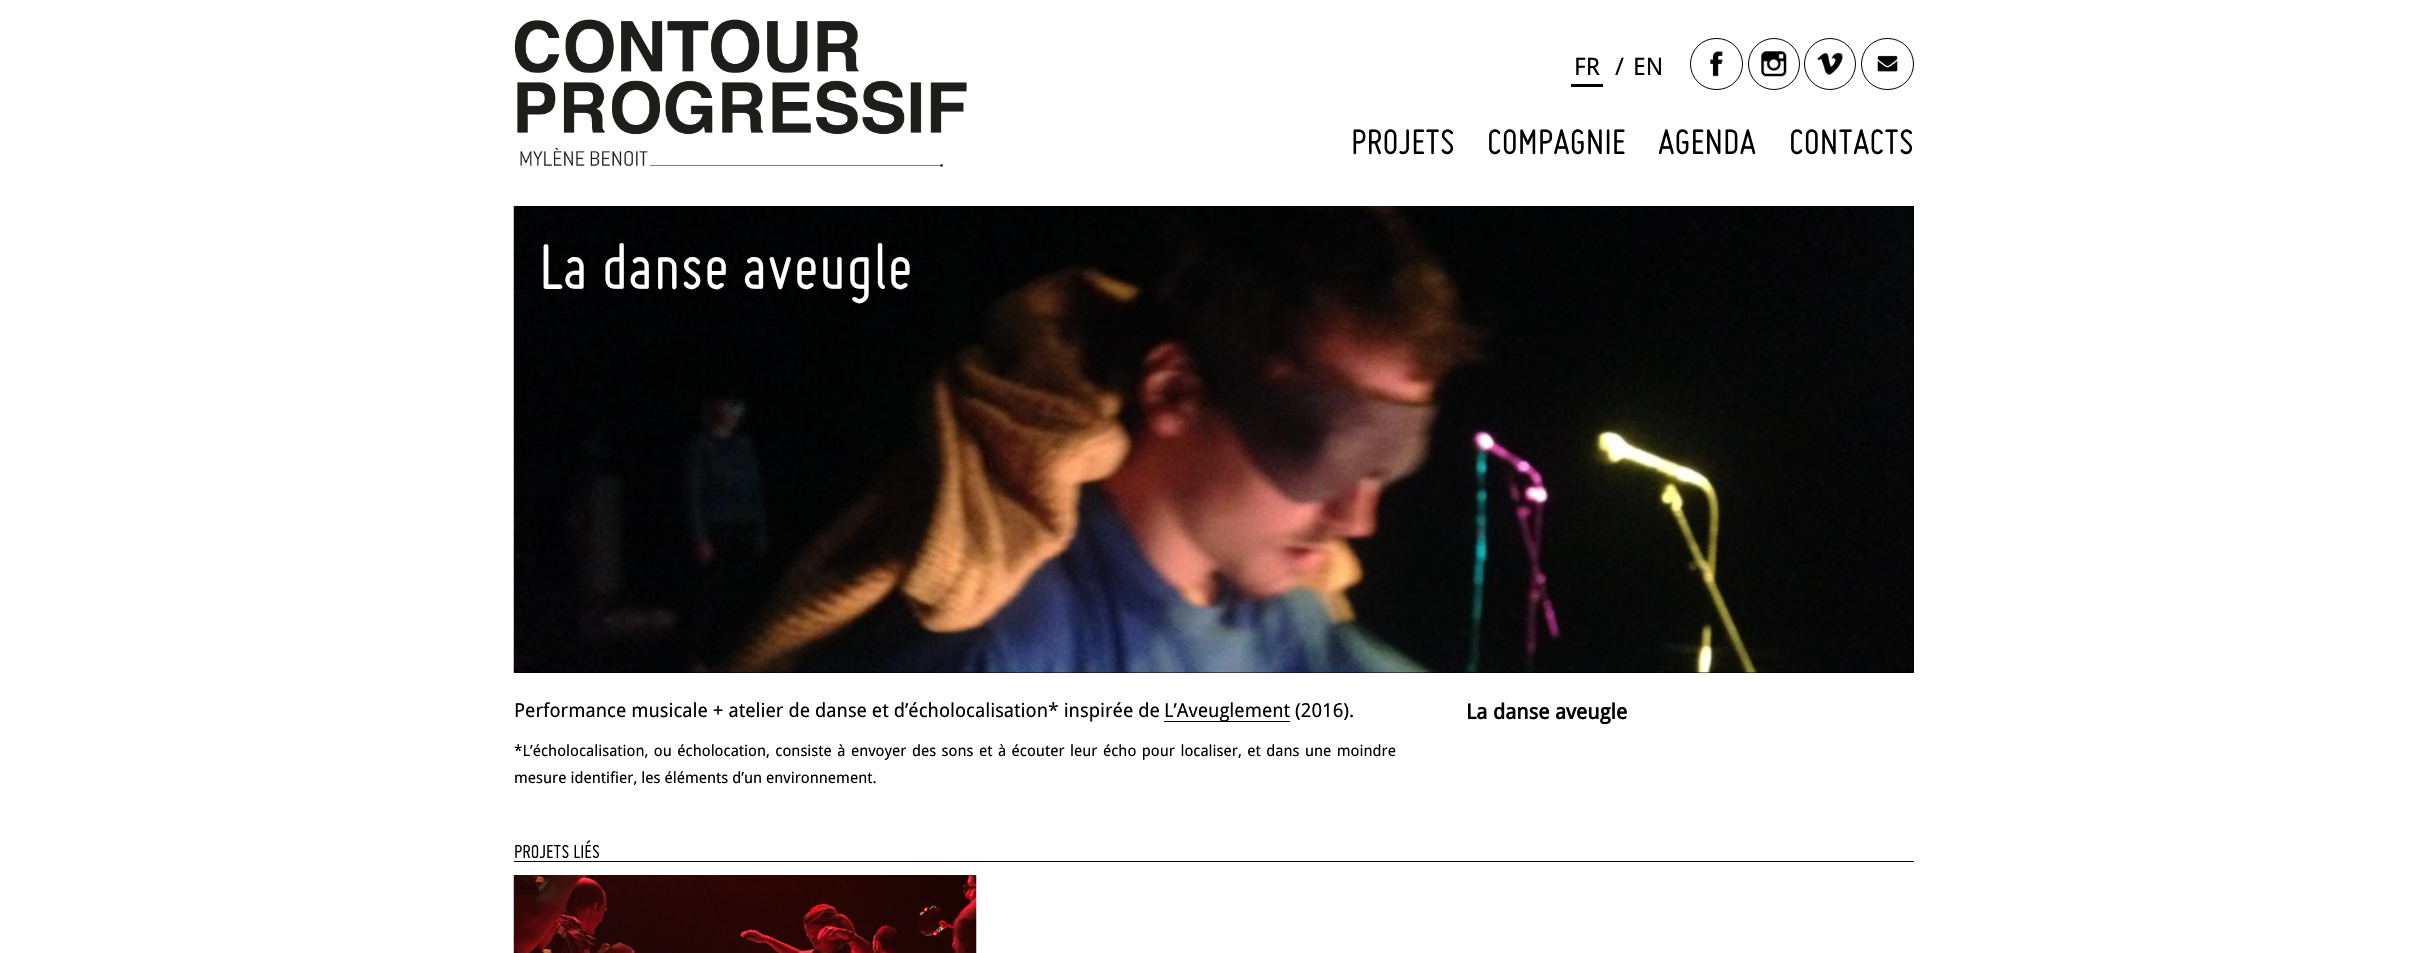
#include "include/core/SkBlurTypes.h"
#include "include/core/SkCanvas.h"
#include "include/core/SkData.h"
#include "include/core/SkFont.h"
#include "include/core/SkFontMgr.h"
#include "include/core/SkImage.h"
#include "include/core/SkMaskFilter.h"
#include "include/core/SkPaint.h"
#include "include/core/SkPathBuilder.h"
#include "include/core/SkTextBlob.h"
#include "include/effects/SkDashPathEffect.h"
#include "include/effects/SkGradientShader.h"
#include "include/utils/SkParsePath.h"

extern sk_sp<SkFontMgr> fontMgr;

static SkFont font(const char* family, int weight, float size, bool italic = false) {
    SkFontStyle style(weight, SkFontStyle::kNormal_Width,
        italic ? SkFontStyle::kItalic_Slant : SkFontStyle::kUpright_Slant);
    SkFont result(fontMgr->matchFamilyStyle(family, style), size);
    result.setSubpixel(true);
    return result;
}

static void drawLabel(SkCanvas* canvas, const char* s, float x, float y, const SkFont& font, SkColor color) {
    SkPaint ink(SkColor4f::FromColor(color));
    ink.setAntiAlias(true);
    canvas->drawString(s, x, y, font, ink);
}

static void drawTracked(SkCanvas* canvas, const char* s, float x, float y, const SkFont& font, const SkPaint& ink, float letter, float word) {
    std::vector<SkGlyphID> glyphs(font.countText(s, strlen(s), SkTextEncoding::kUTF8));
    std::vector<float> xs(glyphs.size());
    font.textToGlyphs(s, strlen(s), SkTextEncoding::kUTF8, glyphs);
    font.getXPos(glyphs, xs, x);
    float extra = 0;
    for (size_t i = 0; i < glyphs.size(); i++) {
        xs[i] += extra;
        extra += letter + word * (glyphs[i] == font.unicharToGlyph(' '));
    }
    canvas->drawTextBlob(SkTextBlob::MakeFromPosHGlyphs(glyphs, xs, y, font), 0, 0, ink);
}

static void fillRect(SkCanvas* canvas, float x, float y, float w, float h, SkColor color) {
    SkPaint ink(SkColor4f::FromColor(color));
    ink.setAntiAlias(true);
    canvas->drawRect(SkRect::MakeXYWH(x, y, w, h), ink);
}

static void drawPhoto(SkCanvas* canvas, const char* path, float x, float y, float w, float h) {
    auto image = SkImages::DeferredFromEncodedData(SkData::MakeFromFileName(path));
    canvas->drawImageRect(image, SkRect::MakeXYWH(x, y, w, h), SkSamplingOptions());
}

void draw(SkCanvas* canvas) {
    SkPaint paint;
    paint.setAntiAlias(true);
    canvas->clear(0xFFFFFFFF);
    drawPhoto(canvas, "assets/img1.png", 514, 19, 453, 148);
    SkFont font1 = font("Droid Sans", 400, 24);
    drawLabel(canvas, "FR", 1574, 75, font1, 0xFF000000);
    fillRect(canvas, 1571, 84, 32, 3, 0xFF000000);
    drawLabel(canvas, "/", 1615, 75, font1, 0xFF000000);
    drawLabel(canvas, "EN", 1633, 75, font1, 0xFF000000);
    paint.setStroke(true);
    paint.setStrokeWidth(1);
    paint.setColor(0xFF000000);
    canvas->drawRoundRect(SkRect::MakeXYWH(1690.5f, 38.5f, 52, 51), 25.5f, 25.5f, paint);
    drawPhoto(canvas, "assets/img2.png", 1710, 51, 13, 26);
    canvas->drawCircle(1774, 64, 25.5f, paint);
    drawPhoto(canvas, "assets/img3.png", 1761, 51, 26, 26);
    canvas->drawCircle(1830, 64, 25.5f, paint);
    drawPhoto(canvas, "assets/img4.png", 1817, 52, 26, 23);
    canvas->drawRoundRect(SkRect::MakeXYWH(1861.5f, 38.5f, 52, 51), 25.5f, 25.5f, paint);
    drawPhoto(canvas, "assets/img5.png", 1877, 55, 21, 17);
    SkFont font2 = font("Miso", 400, 38.5f);
    drawLabel(canvas, "PROJETS", 1351, 154, font2, 0xFF000000);
    drawLabel(canvas, "COMPAGNIE", 1487, 154, font2, 0xFF000000);
    drawLabel(canvas, "AGENDA", 1658, 154, font2, 0xFF000000);
    drawLabel(canvas, "CONTACTS", 1789, 154, font2, 0xFF000000);
    fillRect(canvas, 514, 206, 1400, 467, 0xFF000000);
    drawPhoto(canvas, "assets/img6.png", 513, 206, 1401, 467);
    SkFont font3 = font("Miso", 400, 70);
    drawLabel(canvas, "La danse aveugle", 539, 289, font3, 0xFFFFFFFF);
    SkFont font4 = font("Droid Sans", 400, 19.25f);
    drawLabel(canvas, "Performance musicale + atelier de danse et d’écholocalisation* inspirée de", 514, 717, font4, 0xFF000000);
    fillRect(canvas, 1164, 721, 126, 1, 0xFF000000);
    drawLabel(canvas, "L’Aveuglement (2016).", 1164, 717, font4, 0xFF000000);
    SkFont font5 = font("Droid Sans", 400, 15.4f);
    paint.setStroke(false);
    drawTracked(canvas, "*L’écholocalisation, ou écholocation, consiste à envoyer des sons et à écouter leur écho pour localiser, et dans une moindre", 514, 756, font5, paint, 0, 1.5f);
    drawLabel(canvas, "mesure identifier, les éléments d’un environnement.", 514, 783, font5, 0xFF000000);
    SkFont font6 = font("Droid Sans", 700, 21);
    drawLabel(canvas, "La danse aveugle", 1466, 719, font6, 0xFF000000);
    fillRect(canvas, 514, 861, 1400, 1, 0xFF000000);
    SkFont font7 = font("Miso", 400, 20.5f);
    drawLabel(canvas, "PROJETS LIÉS", 514, 858, font7, 0xFF000000);
    drawPhoto(canvas, "assets/img7.png", 513, 875, 464, 78);
}
